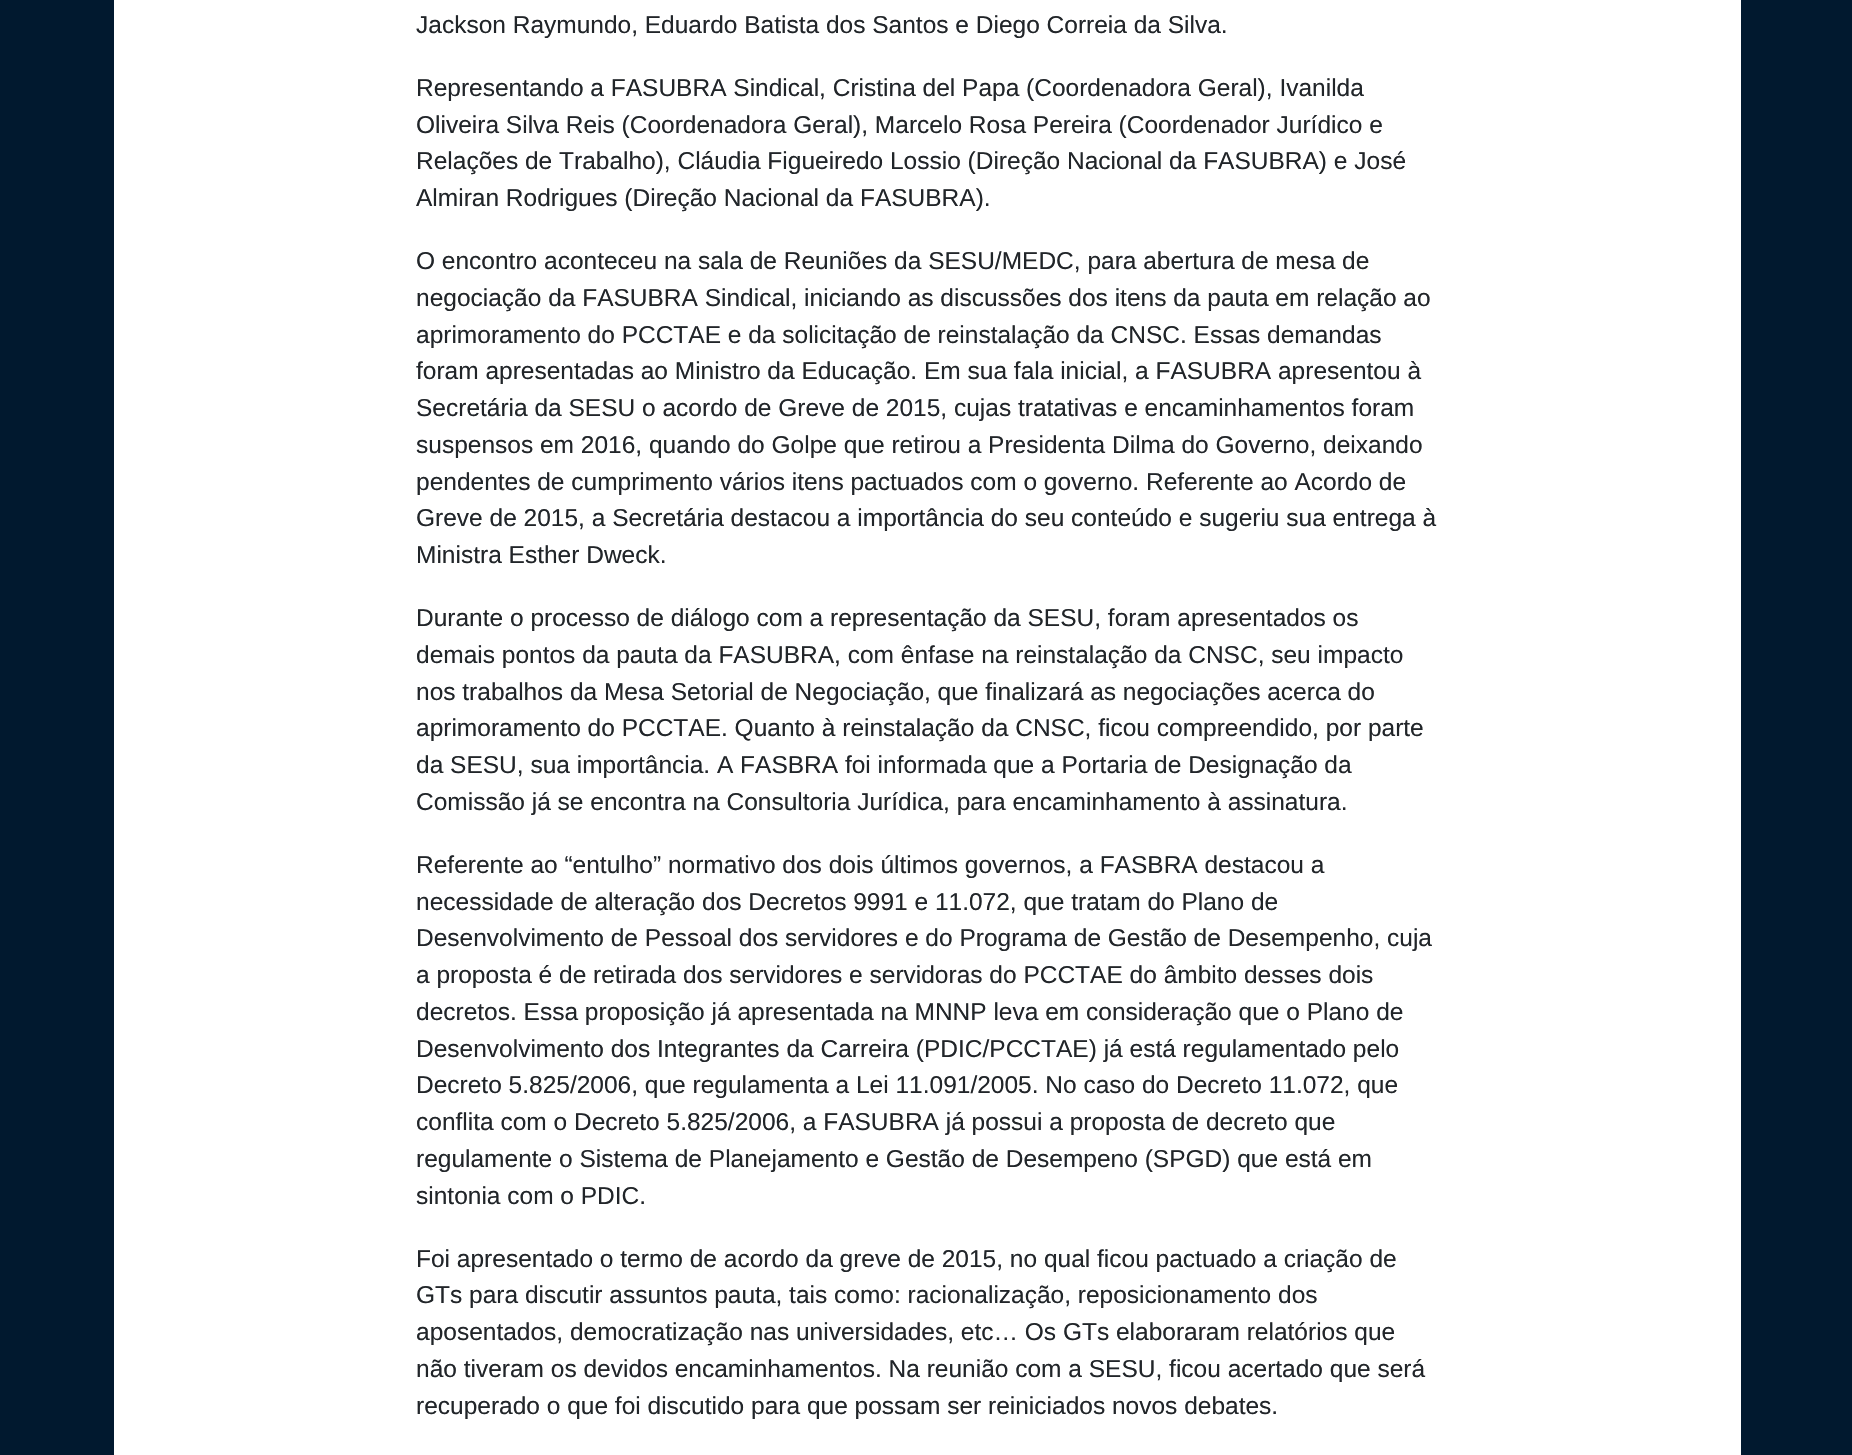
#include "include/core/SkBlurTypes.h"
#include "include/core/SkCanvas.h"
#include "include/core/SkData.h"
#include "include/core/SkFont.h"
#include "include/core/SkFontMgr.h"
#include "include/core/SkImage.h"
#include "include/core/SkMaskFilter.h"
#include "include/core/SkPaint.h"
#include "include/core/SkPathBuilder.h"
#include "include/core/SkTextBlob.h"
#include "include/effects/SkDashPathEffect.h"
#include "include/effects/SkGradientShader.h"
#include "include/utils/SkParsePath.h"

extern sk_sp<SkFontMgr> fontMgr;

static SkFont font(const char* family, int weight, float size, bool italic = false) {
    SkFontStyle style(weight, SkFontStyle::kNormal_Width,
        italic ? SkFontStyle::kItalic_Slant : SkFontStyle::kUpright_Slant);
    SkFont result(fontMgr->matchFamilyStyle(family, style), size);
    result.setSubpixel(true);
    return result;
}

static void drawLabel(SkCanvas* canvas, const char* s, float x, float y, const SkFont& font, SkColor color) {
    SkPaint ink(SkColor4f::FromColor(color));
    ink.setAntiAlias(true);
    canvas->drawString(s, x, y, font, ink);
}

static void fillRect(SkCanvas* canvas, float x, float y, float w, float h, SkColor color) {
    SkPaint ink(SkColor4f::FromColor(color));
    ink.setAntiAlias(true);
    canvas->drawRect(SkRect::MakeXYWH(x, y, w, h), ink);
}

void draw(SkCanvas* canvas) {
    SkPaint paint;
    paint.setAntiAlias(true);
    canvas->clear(0xFF01192F);
    fillRect(canvas, 114, 0, 1627, 1455, 0xFFFFFFFF);
    SkFont font1 = font("Liberation Sans", 400, 24.5f);
    drawLabel(canvas, "Jackson Raymundo, Eduardo Batista dos Santos e Diego Correia da Silva.", 416, 33, font1, 0xFF212529);
    drawLabel(canvas, "Representando a FASUBRA Sindical, Cristina del Papa (Coordenadora Geral), Ivanilda", 416, 96, font1, 0xFF212529);
    drawLabel(canvas, "Oliveira Silva Reis (Coordenadora Geral), Marcelo Rosa Pereira (Coordenador Jurídico e", 416, 133, font1, 0xFF212529);
    drawLabel(canvas, "Relações de Trabalho), Cláudia Figueiredo Lossio (Direção Nacional da FASUBRA) e José", 416, 169, font1, 0xFF212529);
    drawLabel(canvas, "Almiran Rodrigues (Direção Nacional da FASUBRA).", 416, 206, font1, 0xFF212529);
    drawLabel(canvas, "O encontro aconteceu na sala de Reuniões da SESU/MEDC, para abertura de mesa de", 416, 269, font1, 0xFF212529);
    drawLabel(canvas, "negociação da FASUBRA Sindical, iniciando as discussões dos itens da pauta em relação ao", 416, 306, font1, 0xFF212529);
    drawLabel(canvas, "aprimoramento do PCCTAE e da solicitação de reinstalação da CNSC. Essas demandas", 416, 343, font1, 0xFF212529);
    drawLabel(canvas, "foram apresentadas ao Ministro da Educação. Em sua fala inicial, a FASUBRA apresentou à", 416, 379, font1, 0xFF212529);
    drawLabel(canvas, "Secretária da SESU o acordo de Greve de 2015, cujas tratativas e encaminhamentos foram", 416, 416, font1, 0xFF212529);
    drawLabel(canvas, "suspensos em 2016, quando do Golpe que retirou a Presidenta Dilma do Governo, deixando", 416, 453, font1, 0xFF212529);
    drawLabel(canvas, "pendentes de cumprimento vários itens pactuados com o governo. Referente ao Acordo de", 416, 490, font1, 0xFF212529);
    drawLabel(canvas, "Greve de 2015, a Secretária destacou a importância do seu conteúdo e sugeriu sua entrega à", 416, 526, font1, 0xFF212529);
    drawLabel(canvas, "Ministra Esther Dweck.", 416, 563, font1, 0xFF212529);
    drawLabel(canvas, "Durante o processo de diálogo com a representação da SESU, foram apresentados os", 416, 626, font1, 0xFF212529);
    drawLabel(canvas, "demais pontos da pauta da FASUBRA, com ênfase na reinstalação da CNSC, seu impacto", 416, 663, font1, 0xFF212529);
    drawLabel(canvas, "nos trabalhos da Mesa Setorial de Negociação, que finalizará as negociações acerca do", 416, 700, font1, 0xFF212529);
    drawLabel(canvas, "aprimoramento do PCCTAE. Quanto à reinstalação da CNSC, ficou compreendido, por parte", 416, 736, font1, 0xFF212529);
    drawLabel(canvas, "da SESU, sua importância. A FASBRA foi informada que a Portaria de Designação da", 416, 773, font1, 0xFF212529);
    drawLabel(canvas, "Comissão já se encontra na Consultoria Jurídica, para encaminhamento à assinatura.", 416, 810, font1, 0xFF212529);
    drawLabel(canvas, "Referente ao “entulho” normativo dos dois últimos governos, a FASBRA destacou a", 416, 873, font1, 0xFF212529);
    drawLabel(canvas, "necessidade de alteração dos Decretos 9991 e 11.072, que tratam do Plano de", 416, 910, font1, 0xFF212529);
    drawLabel(canvas, "Desenvolvimento de Pessoal dos servidores e do Programa de Gestão de Desempenho, cuja", 416, 946, font1, 0xFF212529);
    drawLabel(canvas, "a proposta é de retirada dos servidores e servidoras do PCCTAE do âmbito desses dois", 416, 983, font1, 0xFF212529);
    drawLabel(canvas, "decretos. Essa proposição já apresentada na MNNP leva em consideração que o Plano de", 416, 1020, font1, 0xFF212529);
    drawLabel(canvas, "Desenvolvimento dos Integrantes da Carreira (PDIC/PCCTAE) já está regulamentado pelo", 416, 1057, font1, 0xFF212529);
    drawLabel(canvas, "Decreto 5.825/2006, que regulamenta a Lei 11.091/2005. No caso do Decreto 11.072, que", 416, 1093, font1, 0xFF212529);
    drawLabel(canvas, "conflita com o Decreto 5.825/2006, a FASUBRA já possui a proposta de decreto que", 416, 1130, font1, 0xFF212529);
    drawLabel(canvas, "regulamente o Sistema de Planejamento e Gestão de Desempeno (SPGD) que está em", 416, 1167, font1, 0xFF212529);
    drawLabel(canvas, "sintonia com o PDIC.", 416, 1204, font1, 0xFF212529);
    drawLabel(canvas, "Foi apresentado o termo de acordo da greve de 2015, no qual ficou pactuado a criação de", 416, 1267, font1, 0xFF212529);
    drawLabel(canvas, "GTs para discutir assuntos pauta, tais como: racionalização, reposicionamento dos", 416, 1303, font1, 0xFF212529);
    drawLabel(canvas, "aposentados, democratização nas universidades, etc… Os GTs elaboraram relatórios que", 416, 1340, font1, 0xFF212529);
    drawLabel(canvas, "não tiveram os devidos encaminhamentos. Na reunião com a SESU, ficou acertado que será", 416, 1377, font1, 0xFF212529);
    drawLabel(canvas, "recuperado o que foi discutido para que possam ser reiniciados novos debates.", 416, 1414, font1, 0xFF212529);
}
